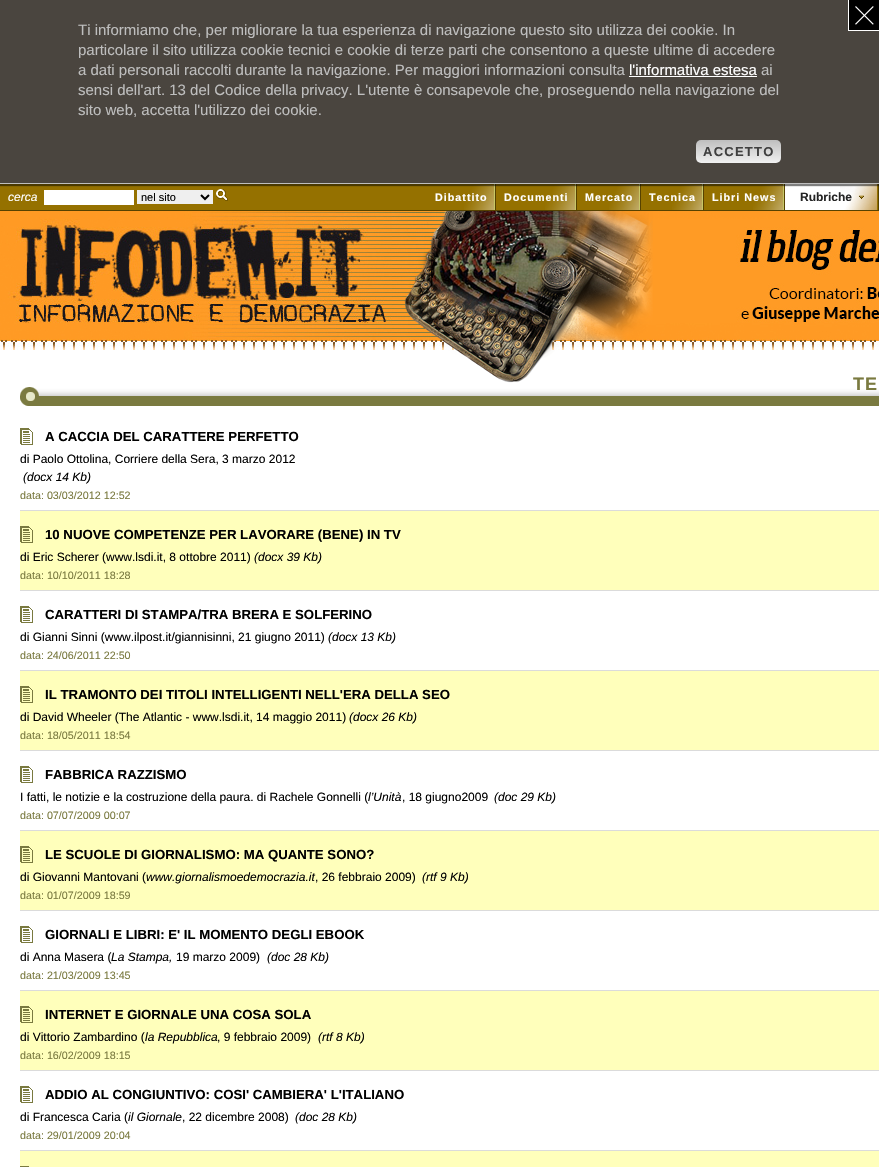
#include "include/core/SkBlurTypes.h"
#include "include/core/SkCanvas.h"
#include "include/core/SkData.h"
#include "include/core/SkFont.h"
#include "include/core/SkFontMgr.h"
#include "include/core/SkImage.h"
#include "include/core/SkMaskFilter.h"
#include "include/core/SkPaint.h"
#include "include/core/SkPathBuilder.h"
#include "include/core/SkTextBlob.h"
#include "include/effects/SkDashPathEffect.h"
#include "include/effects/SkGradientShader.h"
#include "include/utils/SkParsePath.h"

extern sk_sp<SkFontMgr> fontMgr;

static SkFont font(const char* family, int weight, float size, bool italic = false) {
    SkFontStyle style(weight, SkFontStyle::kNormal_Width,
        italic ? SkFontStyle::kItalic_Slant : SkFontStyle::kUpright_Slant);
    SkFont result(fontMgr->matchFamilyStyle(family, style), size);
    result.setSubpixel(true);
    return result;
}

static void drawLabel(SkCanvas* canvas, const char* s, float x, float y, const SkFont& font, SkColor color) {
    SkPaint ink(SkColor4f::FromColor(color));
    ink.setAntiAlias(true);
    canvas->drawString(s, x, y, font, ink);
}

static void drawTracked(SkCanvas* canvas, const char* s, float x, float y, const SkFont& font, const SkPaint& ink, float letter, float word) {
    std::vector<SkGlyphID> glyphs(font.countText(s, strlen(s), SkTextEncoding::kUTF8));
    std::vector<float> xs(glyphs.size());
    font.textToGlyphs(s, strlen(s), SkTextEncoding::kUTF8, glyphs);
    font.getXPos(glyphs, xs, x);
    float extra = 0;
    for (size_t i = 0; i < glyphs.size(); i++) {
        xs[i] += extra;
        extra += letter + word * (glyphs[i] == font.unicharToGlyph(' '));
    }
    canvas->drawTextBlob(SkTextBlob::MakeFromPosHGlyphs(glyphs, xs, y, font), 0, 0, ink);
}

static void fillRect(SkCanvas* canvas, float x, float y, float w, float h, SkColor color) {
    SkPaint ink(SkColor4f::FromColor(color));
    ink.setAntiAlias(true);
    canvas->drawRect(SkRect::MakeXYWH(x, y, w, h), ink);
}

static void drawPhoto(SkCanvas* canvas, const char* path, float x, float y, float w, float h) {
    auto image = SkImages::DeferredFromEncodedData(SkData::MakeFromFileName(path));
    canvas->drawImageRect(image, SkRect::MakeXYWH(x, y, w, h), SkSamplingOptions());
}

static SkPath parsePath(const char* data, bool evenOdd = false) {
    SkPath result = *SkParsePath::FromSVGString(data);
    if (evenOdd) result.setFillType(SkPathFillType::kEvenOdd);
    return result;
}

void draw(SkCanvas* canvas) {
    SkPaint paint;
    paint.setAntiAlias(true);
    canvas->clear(0xFF957100);
    drawPhoto(canvas, "assets/img3.png", 464, 184, 32, 26);
    drawPhoto(canvas, "assets/img3.png", 545, 184, 32, 26);
    drawPhoto(canvas, "assets/img3.png", 609, 184, 32, 26);
    drawPhoto(canvas, "assets/img3.png", 672, 184, 32, 26);
    drawPhoto(canvas, "assets/img3.png", 753, 184, 32, 26);
    fillRect(canvas, 785, 184, 55, 26, 0xFFFFFFFF);
    drawPhoto(canvas, "assets/img4.png", 840, 184, 39, 26);
    paint.setColor(0x80000000);
    paint.setMaskFilter(SkMaskFilter::MakeBlur(kNormal_SkBlurStyle, 0.5f));
    canvas->drawRect(SkRect::MakeXYWH(0, 2, 879, 184), paint);
    paint.setMaskFilter(nullptr);
    fillRect(canvas, 0, 0, 879, 183, 0xFF4A453F);
    fillRect(canvas, 0, 183, 879, 1, 0xFFBEBEBE);
    fillRect(canvas, 849, 0, 30, 30, 0xFF000000);
    drawPhoto(canvas, "assets/img1.png", 855, 6, 19, 19);
    fillRect(canvas, 848, 30, 31, 1, 0xFFFFFFFF);
    fillRect(canvas, 848, 0, 1, 31, 0xFFFFFFFF);
    SkFont font1 = font("Liberation Sans", 400, 15);
    drawLabel(canvas, "Ti informiamo che, per migliorare la tua esperienza di navigazione questo sito utilizza dei cookie. In", 78, 35, font1, 0xFFBEBEBE);
    drawLabel(canvas, "particolare il sito utilizza cookie tecnici e cookie di terze parti che consentono a queste ultime di accedere", 78, 55, font1, 0xFFBEBEBE);
    drawLabel(canvas, "a dati personali raccolti durante la navigazione. Per maggiori informazioni consulta", 78, 75, font1, 0xFFBEBEBE);
    drawLabel(canvas, "l'informativa estesa", 629, 75, font1, 0xFFFFFFFF);
    fillRect(canvas, 629, 76, 128, 1, 0xFFFFFFFF);
    drawLabel(canvas, "ai", 761, 75, font1, 0xFFBEBEBE);
    drawLabel(canvas, "sensi dell'art. 13 del Codice della privacy. L'utente è consapevole che, proseguendo nella navigazione del", 78, 95, font1, 0xFFBEBEBE);
    drawLabel(canvas, "sito web, accetta l'utilizzo dei cookie.", 78, 115, font1, 0xFFBEBEBE);
    {
        const SkColor colors[] = {0xFFBEBEBE, 0xFFF1F1F1};
        const float stops[] = {0, 1};
        const SkPoint ends[] = {{739, 140}, {739, 163}};
        paint.setShader(SkGradientShader::MakeLinear(ends, colors, stops, 2, SkTileMode::kClamp));
        paint.setAlpha(255);
    }
    canvas->drawRoundRect(SkRect::MakeXYWH(696, 140, 85, 23), 5, 5, paint);
    SkFont font2 = font("Liberation Sans", 700, 13);
    paint.setShader(nullptr);
    paint.setColor(0xFF404040);
    drawTracked(canvas, "ACCETTO", 703, 156, font2, paint, 1.25f, 0);
    fillRect(canvas, 0, 210, 879, 1, 0xFF574200);
    SkFont font3 = font("Liberation Sans", 400, 12, true);
    drawLabel(canvas, "cerca", 8, 201, font3, 0xFFFFFFFF);
    fillRect(canvas, 44, 190, 90, 15, 0xFFFFFFFF);
    fillRect(canvas, 137, 190, 76, 14, 0xFFEFEFEF);
    paint.setStroke(true);
    paint.setStrokeWidth(2);
    paint.setColor(0xFF000000);
    canvas->drawPath(parsePath("M201 195L205 199L209 195"), paint);
    SkFont font4 = font("Liberation Sans", 400, 11);
    drawLabel(canvas, "nel sito", 141, 201, font4, 0xFF000000);
    drawPhoto(canvas, "assets/img2.png", 216, 189, 12, 12);
    SkFont font5 = font("Liberation Sans", 700, 10.75f);
    paint.setStroke(false);
    paint.setColor(0xFFFFFFFF);
    drawTracked(canvas, "Dibattito", 435, 201, font5, paint, 1, 0);
    drawTracked(canvas, "Documenti", 504, 201, font5, paint, 1, 0);
    drawTracked(canvas, "Mercato", 585, 201, font5, paint, 1, 0);
    drawTracked(canvas, "Tecnica", 649, 201, font5, paint, 1, 0);
    drawTracked(canvas, "Libri News", 712, 201, font5, paint, 1, 0);
    drawPhoto(canvas, "assets/img5.png", 859, 195, 5, 4);
    SkFont font6 = font("Liberation Sans", 700, 12);
    drawLabel(canvas, "Rubriche", 800, 201, font6, 0xFF242424);
    drawPhoto(canvas, "assets/img6.png", 0, 211, 879, 139);
    fillRect(canvas, 0, 350, 879, 817, 0xFFFFFFFF);
    drawPhoto(canvas, "assets/img7.png", 404, 211, 249, 172);
    drawPhoto(canvas, "assets/img8.png", 20, 387, 859, 19);
    SkFont font7 = font("Liberation Sans", 700, 18);
    paint.setColor(0xFF7A7A40);
    drawTracked(canvas, "TE", 853, 390, font7, paint, 1, 0);
    fillRect(canvas, 20, 510, 859, 1, 0xFFDBDBDB);
    drawPhoto(canvas, "assets/img9.png", 20, 428, 13, 17);
    SkFont font8 = font("Liberation Sans", 700, 13.2f);
    drawLabel(canvas, "A CACCIA DEL CARATTERE PERFETTO", 45, 441, font8, 0xFF000000);
    SkFont font9 = font("Liberation Sans", 400, 12);
    drawLabel(canvas, "di Paolo Ottolina, Corriere della Sera, 3 marzo 2012", 20, 463, font9, 0xFF000000);
    drawLabel(canvas, "(docx 14 Kb)", 23, 481, font3, 0xFF000000);
    SkFont font10 = font("Liberation Sans", 400, 10.75f);
    drawLabel(canvas, "data: 03/03/2012 12:52", 20, 499, font10, 0xFF7A7A40);
    fillRect(canvas, 20, 511, 859, 79, 0xFFFFFFBB);
    fillRect(canvas, 20, 590, 859, 1, 0xFFDBDBDB);
    drawPhoto(canvas, "assets/img10.png", 20, 526, 13, 17);
    drawLabel(canvas, "10 NUOVE COMPETENZE PER LAVORARE (BENE) IN TV", 45, 539, font8, 0xFF000000);
    drawLabel(canvas, "di Eric Scherer (www.lsdi.it, 8 ottobre 2011)", 20, 561, font9, 0xFF000000);
    drawLabel(canvas, "(docx 39 Kb)", 254, 561, font3, 0xFF000000);
    drawLabel(canvas, "data: 10/10/2011 18:28", 20, 579, font10, 0xFF7A7A40);
    fillRect(canvas, 20, 670, 859, 1, 0xFFDBDBDB);
    drawPhoto(canvas, "assets/img9.png", 20, 606, 13, 17);
    drawLabel(canvas, "CARATTERI DI STAMPA/TRA BRERA E SOLFERINO", 45, 619, font8, 0xFF000000);
    drawLabel(canvas, "di Gianni Sinni (www.ilpost.it/giannisinni, 21 giugno 2011)", 20, 641, font9, 0xFF000000);
    drawLabel(canvas, "(docx 13 Kb)", 328, 641, font3, 0xFF000000);
    drawLabel(canvas, "data: 24/06/2011 22:50", 20, 659, font10, 0xFF7A7A40);
    fillRect(canvas, 20, 671, 859, 79, 0xFFFFFFBB);
    fillRect(canvas, 20, 750, 859, 1, 0xFFDBDBDB);
    drawPhoto(canvas, "assets/img10.png", 20, 686, 13, 17);
    drawLabel(canvas, "IL TRAMONTO DEI TITOLI INTELLIGENTI NELL'ERA DELLA SEO", 45, 699, font8, 0xFF000000);
    drawLabel(canvas, "di David Wheeler (The Atlantic - www.lsdi.it, 14 maggio 2011)", 20, 721, font9, 0xFF000000);
    drawLabel(canvas, "(docx 26 Kb)", 349, 721, font3, 0xFF000000);
    drawLabel(canvas, "data: 18/05/2011 18:54", 20, 739, font10, 0xFF7A7A40);
    fillRect(canvas, 20, 830, 859, 1, 0xFFDBDBDB);
    drawPhoto(canvas, "assets/img9.png", 20, 766, 13, 17);
    drawLabel(canvas, "FABBRICA RAZZISMO", 45, 779, font8, 0xFF000000);
    drawLabel(canvas, "I fatti, le notizie e la costruzione della paura. di Rachele Gonnelli (", 20, 801, font9, 0xFF000000);
    drawLabel(canvas, "l’Unità", 368, 801, font3, 0xFF000000);
    drawLabel(canvas, ", 18 giugno2009", 402, 801, font9, 0xFF000000);
    drawLabel(canvas, "(doc 29 Kb)", 494, 801, font3, 0xFF000000);
    drawLabel(canvas, "data: 07/07/2009 00:07", 20, 819, font10, 0xFF7A7A40);
    fillRect(canvas, 20, 831, 859, 79, 0xFFFFFFBB);
    fillRect(canvas, 20, 910, 859, 1, 0xFFDBDBDB);
    drawPhoto(canvas, "assets/img10.png", 20, 846, 13, 17);
    drawLabel(canvas, "LE SCUOLE DI GIORNALISMO: MA QUANTE SONO?", 45, 859, font8, 0xFF000000);
    drawLabel(canvas, "di Giovanni Mantovani (", 20, 881, font9, 0xFF000000);
    drawLabel(canvas, "www.giornalismoedemocrazia.it", 146, 881, font3, 0xFF000000);
    drawLabel(canvas, ", 26 febbraio 2009)", 315, 881, font9, 0xFF000000);
    drawLabel(canvas, "(rtf 9 Kb)", 422, 881, font3, 0xFF000000);
    drawLabel(canvas, "data: 01/07/2009 18:59", 20, 899, font10, 0xFF7A7A40);
    fillRect(canvas, 20, 990, 859, 1, 0xFFDBDBDB);
    drawPhoto(canvas, "assets/img9.png", 20, 926, 13, 17);
    drawLabel(canvas, "GIORNALI E LIBRI: E' IL MOMENTO DEGLI EBOOK", 45, 939, font8, 0xFF000000);
    drawLabel(canvas, "di Anna Masera (", 20, 961, font9, 0xFF000000);
    drawLabel(canvas, "La Stampa,", 111, 961, font3, 0xFF000000);
    drawLabel(canvas, "19 marzo 2009)", 176, 961, font9, 0xFF000000);
    drawLabel(canvas, "(doc 28 Kb)", 267, 961, font3, 0xFF000000);
    drawLabel(canvas, "data: 21/03/2009 13:45", 20, 979, font10, 0xFF7A7A40);
    fillRect(canvas, 20, 991, 859, 79, 0xFFFFFFBB);
    fillRect(canvas, 20, 1070, 859, 1, 0xFFDBDBDB);
    drawPhoto(canvas, "assets/img10.png", 20, 1006, 13, 17);
    drawLabel(canvas, "INTERNET E GIORNALE UNA COSA SOLA", 45, 1019, font8, 0xFF000000);
    drawLabel(canvas, "di Vittorio Zambardino (", 20, 1041, font9, 0xFF000000);
    drawLabel(canvas, "la Repubblica", 145, 1041, font3, 0xFF000000);
    drawLabel(canvas, ", 9 febbraio 2009)", 217, 1041, font9, 0xFF000000);
    drawLabel(canvas, "(rtf 8 Kb)", 318, 1041, font3, 0xFF000000);
    drawLabel(canvas, "data: 16/02/2009 18:15", 20, 1059, font10, 0xFF7A7A40);
    fillRect(canvas, 20, 1150, 859, 1, 0xFFDBDBDB);
    drawPhoto(canvas, "assets/img9.png", 20, 1086, 13, 17);
    drawLabel(canvas, "ADDIO AL CONGIUNTIVO: COSI' CAMBIERA' L'ITALIANO", 45, 1099, font8, 0xFF000000);
    drawLabel(canvas, "di Francesca Caria (", 20, 1121, font9, 0xFF000000);
    drawLabel(canvas, "il Giornale", 128, 1121, font3, 0xFF000000);
    drawLabel(canvas, ", 22 dicembre 2008)", 182, 1121, font9, 0xFF000000);
    drawLabel(canvas, "(doc 28 Kb)", 295, 1121, font3, 0xFF000000);
    drawLabel(canvas, "data: 29/01/2009 20:04", 20, 1139, font10, 0xFF7A7A40);
    fillRect(canvas, 20, 1151, 859, 16, 0xFFFFFFBB);
    fillRect(canvas, 20, 1166, 9, 1, 0xFF7A7A40);
}
